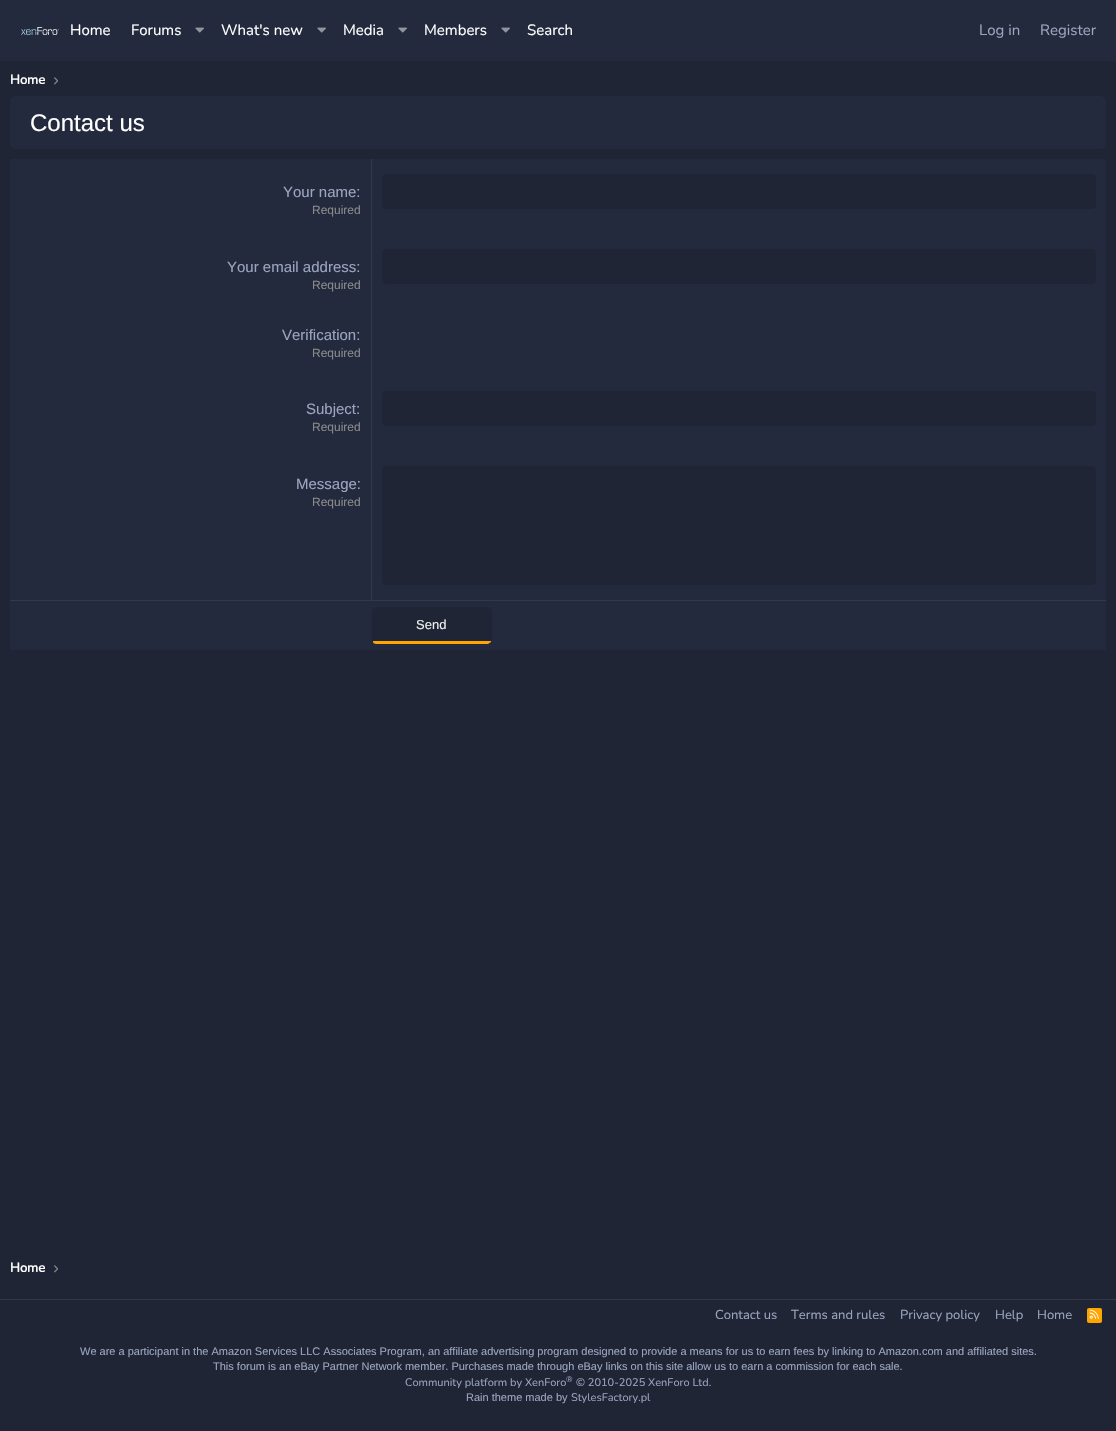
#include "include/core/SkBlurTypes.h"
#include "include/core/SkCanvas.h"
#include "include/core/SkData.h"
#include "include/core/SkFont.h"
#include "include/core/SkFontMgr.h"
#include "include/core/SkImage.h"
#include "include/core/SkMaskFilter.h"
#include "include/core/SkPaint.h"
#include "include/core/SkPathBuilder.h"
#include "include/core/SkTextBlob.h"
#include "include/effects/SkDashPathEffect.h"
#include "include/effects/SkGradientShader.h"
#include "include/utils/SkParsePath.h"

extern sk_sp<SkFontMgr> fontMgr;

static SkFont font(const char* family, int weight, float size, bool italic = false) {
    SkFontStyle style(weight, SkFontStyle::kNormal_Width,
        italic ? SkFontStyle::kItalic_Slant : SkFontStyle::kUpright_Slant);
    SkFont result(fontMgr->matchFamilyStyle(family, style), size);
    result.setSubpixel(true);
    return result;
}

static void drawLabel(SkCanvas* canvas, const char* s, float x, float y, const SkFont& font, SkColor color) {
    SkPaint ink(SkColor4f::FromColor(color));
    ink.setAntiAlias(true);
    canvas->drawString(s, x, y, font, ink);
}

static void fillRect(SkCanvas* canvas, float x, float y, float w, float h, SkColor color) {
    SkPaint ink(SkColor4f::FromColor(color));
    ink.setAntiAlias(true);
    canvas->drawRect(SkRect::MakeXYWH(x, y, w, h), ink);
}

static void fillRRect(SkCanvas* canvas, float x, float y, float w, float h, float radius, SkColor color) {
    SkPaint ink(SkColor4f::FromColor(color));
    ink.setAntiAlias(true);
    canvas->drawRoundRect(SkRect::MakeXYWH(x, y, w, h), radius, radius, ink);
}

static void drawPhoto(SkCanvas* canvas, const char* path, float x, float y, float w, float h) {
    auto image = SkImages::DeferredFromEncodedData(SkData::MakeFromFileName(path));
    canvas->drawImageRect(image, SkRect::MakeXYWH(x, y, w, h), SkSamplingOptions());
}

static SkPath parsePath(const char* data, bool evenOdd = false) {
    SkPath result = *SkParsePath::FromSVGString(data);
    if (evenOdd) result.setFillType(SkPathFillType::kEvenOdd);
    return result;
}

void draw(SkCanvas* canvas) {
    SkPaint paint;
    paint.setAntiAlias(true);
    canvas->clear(0xFF1F2535);
    fillRect(canvas, 0, 0, 1116, 61, 0xFF232A3D);
    drawPhoto(canvas, "assets/img1.png", 21, 27, 38, 8);
    SkFont font1 = font("Nunito", 200, 15);
    drawLabel(canvas, "Home", 70, 35, font1, 0xFFFFFFFF);
    drawLabel(canvas, "Forums", 131, 35, font1, 0xFFFFFFFF);
    drawPhoto(canvas, "assets/img2.png", 195, 27, 9, 6);
    drawLabel(canvas, "What's new", 221, 35, font1, 0xFFFFFFFF);
    drawPhoto(canvas, "assets/img2.png", 317, 27, 9, 6);
    drawLabel(canvas, "Media", 343, 35, font1, 0xFFFFFFFF);
    drawPhoto(canvas, "assets/img2.png", 398, 27, 9, 6);
    drawLabel(canvas, "Members", 424, 35, font1, 0xFFFFFFFF);
    drawPhoto(canvas, "assets/img2.png", 501, 27, 9, 6);
    drawLabel(canvas, "Search", 527, 35, font1, 0xFFFFFFFF);
    drawLabel(canvas, "Log in", 979, 35, font1, 0xFF9BA5C0);
    drawLabel(canvas, "Register", 1040, 35, font1, 0xFF9BA5C0);
    SkFont font2 = font("Nunito", 700, 13);
    drawLabel(canvas, "Home", 10, 84, font2, 0xFFFFFFFF);
    drawPhoto(canvas, "assets/img3.png", 54, 77, 4, 8);
    fillRRect(canvas, 10, 96, 1096, 53, 6, 0xFF232A3D);
    SkFont font3 = font("Liberation Sans", 400, 24);
    drawLabel(canvas, "Contact us", 30, 131, font3, 0xFFFFFFFF);
    fillRRect(canvas, 10, 159, 1096, 491, 4, 0xFF232A3D);
    paint.setColor(0xFF232A3D);
    canvas->drawPath(parsePath("M13 159H372V234H10V162C10 160.5 11.5 159 13 159Z"), paint);
    fillRect(canvas, 371, 159, 1, 441, 0xFF31394A);
    SkFont font4 = font("Liberation Sans", 400, 15);
    drawLabel(canvas, "Your name:", 283, 197, font4, 0xFF9BA5C0);
    SkFont font5 = font("Liberation Sans", 400, 12);
    drawLabel(canvas, "Required", 312, 214, font5, 0xFF8A8A8A);
    fillRRect(canvas, 382, 174, 714, 35, 4, 0xFF1F2535);
    drawLabel(canvas, "Your email address:", 227, 272, font4, 0xFF9BA5C0);
    drawLabel(canvas, "Required", 312, 289, font5, 0xFF8A8A8A);
    fillRRect(canvas, 382, 249, 714, 35, 4, 0xFF1F2535);
    drawLabel(canvas, "Verification:", 282, 340, font4, 0xFF9BA5C0);
    drawLabel(canvas, "Required", 312, 357, font5, 0xFF8A8A8A);
    drawLabel(canvas, "Subject:", 306, 414, font4, 0xFF9BA5C0);
    drawLabel(canvas, "Required", 312, 431, font5, 0xFF8A8A8A);
    fillRRect(canvas, 382, 391, 714, 35, 4, 0xFF1F2535);
    drawLabel(canvas, "Message:", 296, 489, font4, 0xFF9BA5C0);
    drawLabel(canvas, "Required", 312, 506, font5, 0xFF8A8A8A);
    fillRRect(canvas, 382, 466, 714, 119, 4, 0xFF1F2535);
    fillRect(canvas, 10, 647, 1096, 3, 0xFF232A3D);
    fillRect(canvas, 10, 600, 1096, 1, 0xFF31394A);
    paint.setColor(0xFF1F2535);
    canvas->drawPath(parsePath("M376 608H488C490 608 491 609 491 611V640C491 641 490 641 488 641H376C374 641 373 641 373 640V611C373 609 374 608 376 608Z"), paint);
    canvas->drawPath(parsePath("M376 607L373 608L374 609L376 608H488L490 609L491 608L488 607Z"), paint);
    canvas->drawPath(parsePath("M492 640V611C492 610 491.5 609 491 608L490 609L491 610.5V640.5L491.5 642Z"), paint);
    paint.setColor(0xFFFFA500);
    canvas->drawPath(parsePath("M376 644H488L491 642V641H490H395H376H373V642C373 643 375 644 376 644Z"), paint);
    paint.setColor(0xFF1F2535);
    canvas->drawPath(parsePath("M372 611V640C372 640.5 372 641.5 372.5 642L373 640.5V610.5L374 609L373 608C372.5 609 372 610 372 611Z"), paint);
    SkFont font6 = font("Liberation Sans", 400, 13);
    drawLabel(canvas, "Send", 416, 629, font6, 0xFFEEEEEE);
    drawLabel(canvas, "Home", 10, 1272, font2, 0xFFFFFFFF);
    drawPhoto(canvas, "assets/img3.png", 54, 1265, 4, 8);
    fillRect(canvas, 0, 1299, 1116, 1, 0xFF31394A);
    SkFont font7 = font("Nunito", 200, 13);
    drawLabel(canvas, "Contact us", 715, 1319, font7, 0xFF9BA5C0);
    drawLabel(canvas, "Terms and rules", 791, 1319, font7, 0xFF9BA5C0);
    drawLabel(canvas, "Privacy policy", 900, 1319, font7, 0xFF9BA5C0);
    drawLabel(canvas, "Help", 995, 1319, font7, 0xFF9BA5C0);
    drawLabel(canvas, "Home", 1037, 1319, font7, 0xFF9BA5C0);
    fillRRect(canvas, 1087, 1308, 15, 15, 2, 0xFFFFA500);
    drawPhoto(canvas, "assets/img4.png", 1089, 1309, 10, 10);
    SkFont font8 = font("Liberation Sans", 400, 11);
    drawLabel(canvas, "We are a participant in the Amazon Services LLC Associates Program, an affiliate advertising program designed to provide a means for us to earn fees by linking to Amazon.com and affiliated sites.", 80, 1355, font8, 0xFF9BA5C0);
    drawLabel(canvas, "This forum is an eBay Partner Network member. Purchases made through eBay links on this site allow us to earn a commission for each sale.", 213, 1370, font8, 0xFF9BA5C0);
    SkFont font9 = font("Nunito", 200, 11);
    drawLabel(canvas, "Community platform by XenForo", 405, 1386, font9, 0xFF9BA5C0);
    SkFont font10 = font("Nunito", 200, 8);
    drawLabel(canvas, "®", 566, 1382, font10, 0xFF9BA5C0);
    drawLabel(canvas, "© 2010-2025 XenForo Ltd.", 576, 1386, font9, 0xFF9BA5C0);
    drawLabel(canvas, "Rain theme made by", 466, 1401, font8, 0xFF9BA5C0);
    drawLabel(canvas, "StylesFactory.pl", 571, 1401, font9, 0xFF9BA5C0);
}
